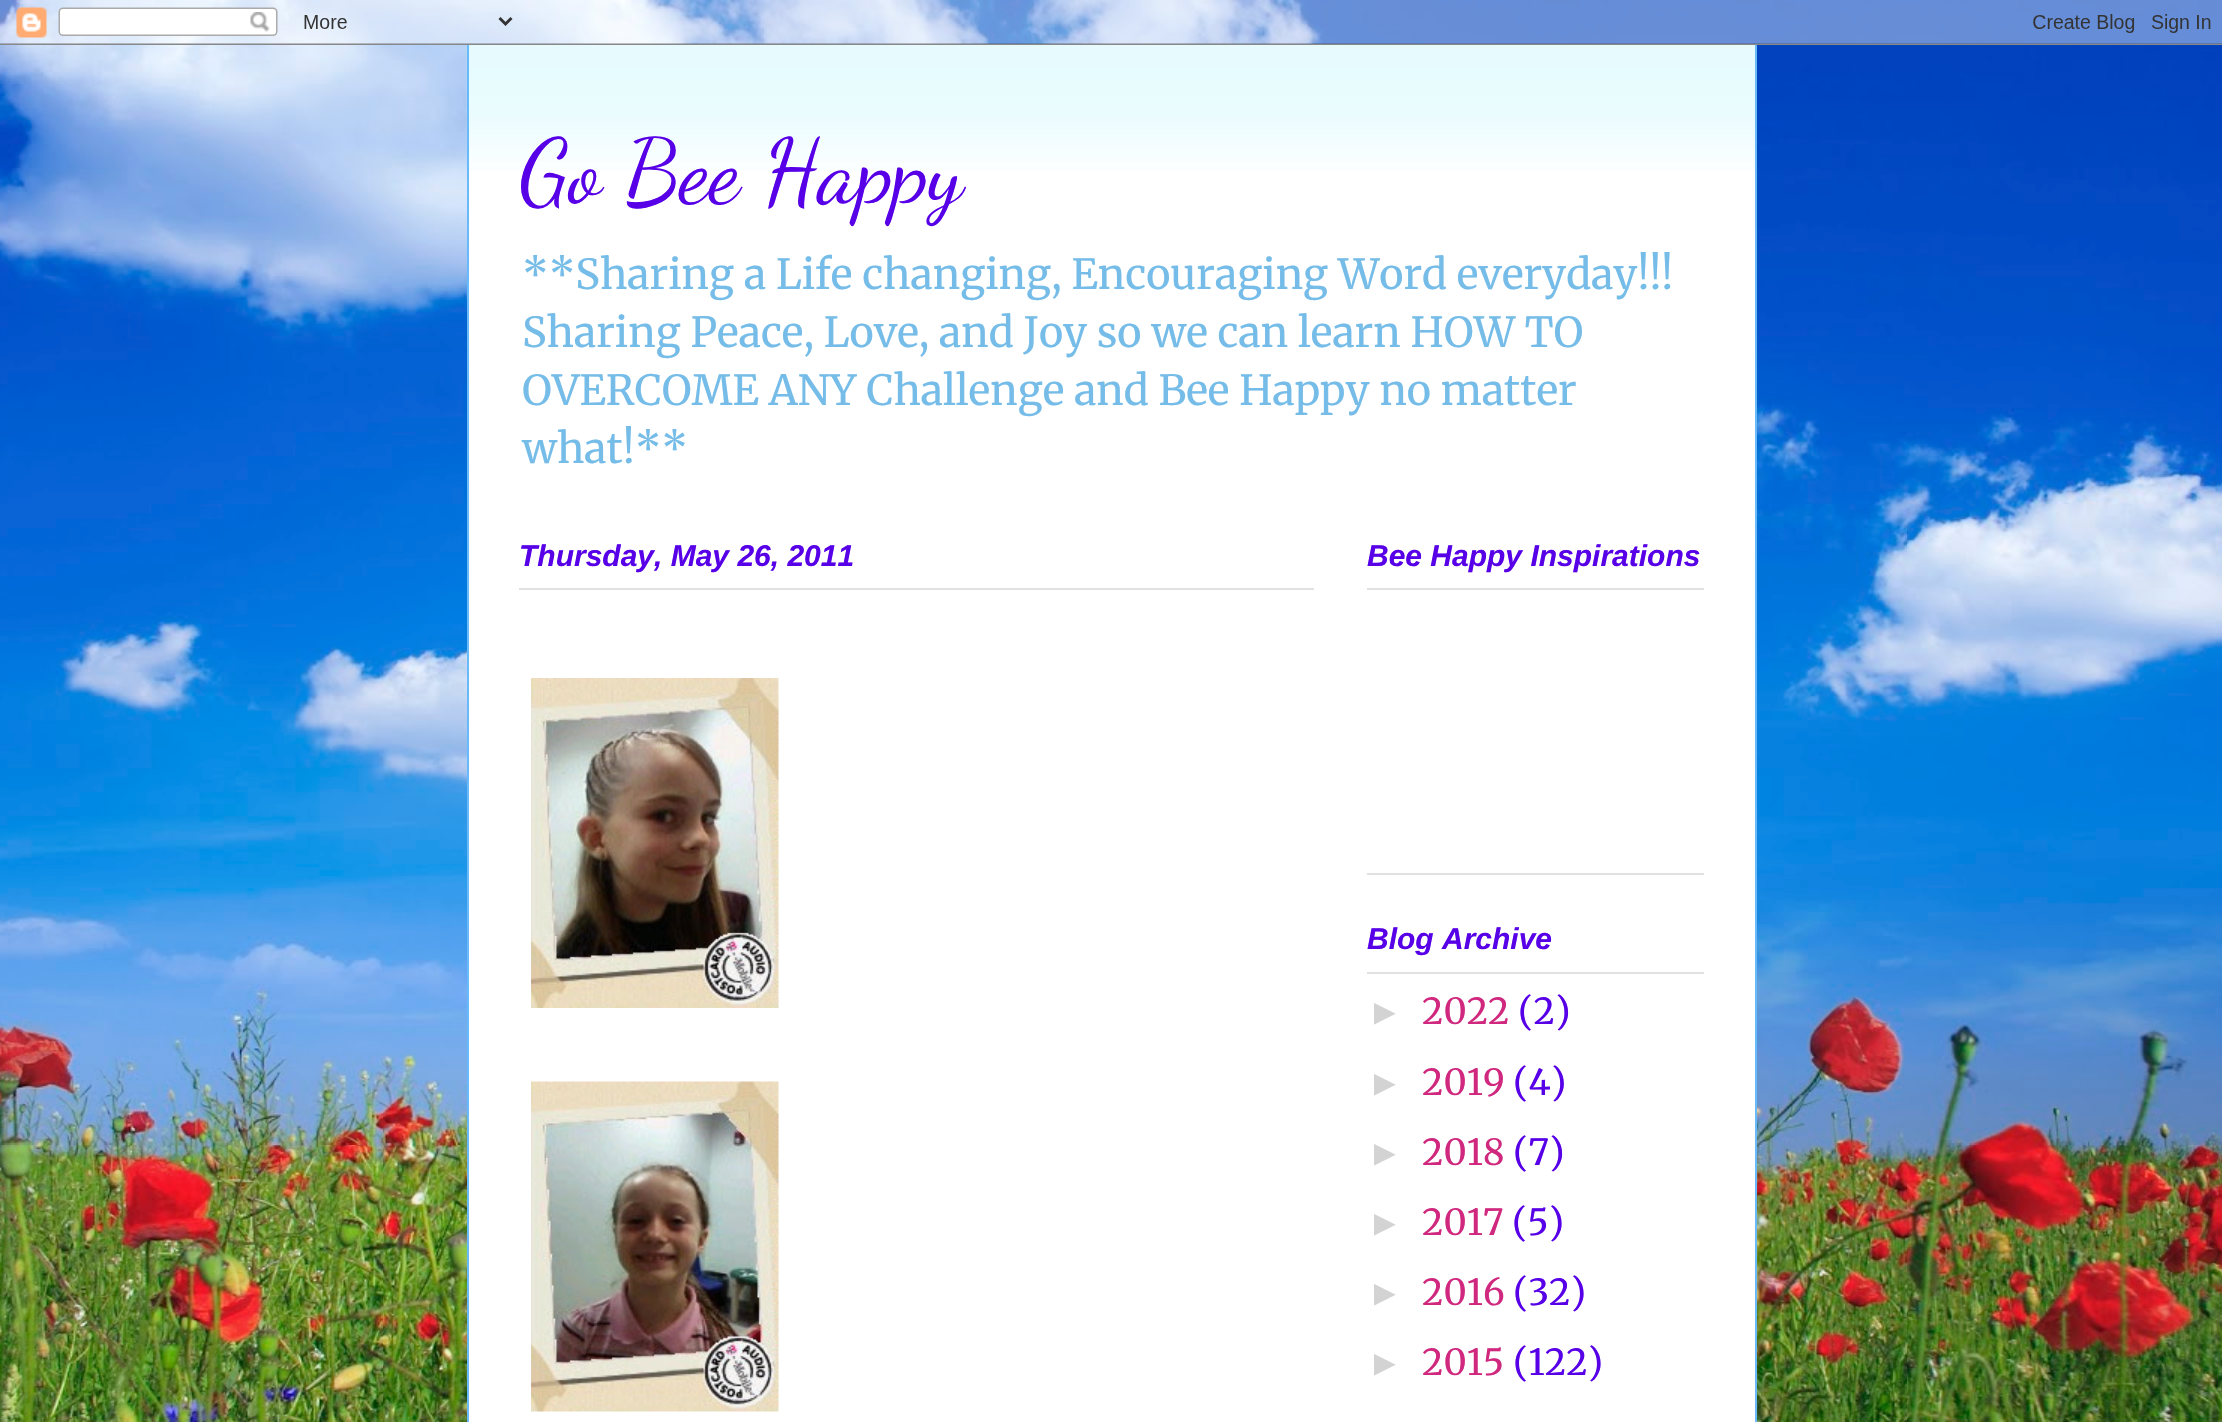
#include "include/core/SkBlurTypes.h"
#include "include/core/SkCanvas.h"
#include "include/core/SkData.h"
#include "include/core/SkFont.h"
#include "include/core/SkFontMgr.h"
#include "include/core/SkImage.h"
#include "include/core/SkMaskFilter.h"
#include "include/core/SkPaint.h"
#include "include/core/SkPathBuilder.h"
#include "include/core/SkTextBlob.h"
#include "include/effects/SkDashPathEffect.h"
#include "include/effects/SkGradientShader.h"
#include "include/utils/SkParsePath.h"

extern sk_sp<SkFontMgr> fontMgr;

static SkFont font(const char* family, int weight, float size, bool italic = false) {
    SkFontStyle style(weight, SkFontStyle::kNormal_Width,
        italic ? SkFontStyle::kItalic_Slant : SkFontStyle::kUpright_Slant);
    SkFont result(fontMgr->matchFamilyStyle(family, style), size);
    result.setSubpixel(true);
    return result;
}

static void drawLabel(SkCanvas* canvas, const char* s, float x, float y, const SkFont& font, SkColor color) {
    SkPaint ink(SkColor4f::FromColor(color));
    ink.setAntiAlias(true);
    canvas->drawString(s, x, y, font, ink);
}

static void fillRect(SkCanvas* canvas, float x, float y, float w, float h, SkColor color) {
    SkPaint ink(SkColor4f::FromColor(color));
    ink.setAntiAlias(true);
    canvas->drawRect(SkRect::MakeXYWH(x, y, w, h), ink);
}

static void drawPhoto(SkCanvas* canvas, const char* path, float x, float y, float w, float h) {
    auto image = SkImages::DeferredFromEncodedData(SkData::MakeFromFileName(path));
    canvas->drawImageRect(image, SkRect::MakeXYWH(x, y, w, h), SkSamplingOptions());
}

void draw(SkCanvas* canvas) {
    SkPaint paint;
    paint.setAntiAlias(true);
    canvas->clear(0xFFFFFFFF);
    drawPhoto(canvas, "assets/img1.png", 0, 0, 2222, 1422);
    drawPhoto(canvas, "assets/img2.png", 0, 0, 2222, 45);
    fillRect(canvas, 469, 45, 1286, 1377, 0xFFFFFFFF);
    drawPhoto(canvas, "assets/img3.png", 466, 45, 1289, 126);
    fillRect(canvas, 1755, 45, 2, 1377, 0xFF68BAFB);
    fillRect(canvas, 467, 45, 2, 1377, 0xFF68BAFB);
    SkFont font1 = font("Dancing Script", 400, 90);
    drawLabel(canvas, "Go Bee Happy", 519, 201, font1, 0xFF5700E8);
    SkFont font2 = font("Merriweather", 300, 41.4f);
    drawLabel(canvas, "**Sharing a Life changing, Encouraging Word everyday!!!", 522, 289, font2, 0xFF75BDE8);
    drawLabel(canvas, "Sharing Peace, Love, and Joy so we can learn HOW TO", 522, 347, font2, 0xFF75BDE8);
    drawLabel(canvas, "OVERCOME ANY Challenge and Bee Happy no matter", 522, 405, font2, 0xFF75BDE8);
    drawLabel(canvas, "what!**", 522, 463, font2, 0xFF75BDE8);
    fillRect(canvas, 519, 588, 795, 2, 0xFFE1E1E1);
    SkFont font3 = font("Liberation Sans", 700, 30, true);
    drawLabel(canvas, "Thursday, May 26, 2011", 519, 566, font3, 0xFF5700E8);
    drawPhoto(canvas, "assets/img4.png", 531, 678, 248, 330);
    drawPhoto(canvas, "assets/img5.png", 531, 1081, 248, 331);
    fillRect(canvas, 1367, 873, 337, 2, 0xFFE1E1E1);
    fillRect(canvas, 1367, 588, 337, 2, 0xFFE1E1E1);
    drawLabel(canvas, "Bee Happy Inspirations", 1367, 566, font3, 0xFF5700E8);
    fillRect(canvas, 1367, 972, 337, 2, 0xFFE1E1E1);
    drawLabel(canvas, "Blog Archive", 1367, 949, font3, 0xFF5700E8);
    SkFont font4 = font("Liberation Sans", 400, 36);
    drawLabel(canvas, "►", 1367, 1024, font4, 0xFFD3D3D3);
    SkFont font5 = font("Merriweather", 300, 36);
    drawLabel(canvas, "2022", 1422, 1024, font5, 0xFFD0287E);
    drawLabel(canvas, "(2)", 1518, 1024, font5, 0xFF5700E8);
    drawLabel(canvas, "►", 1367, 1095, font4, 0xFFD3D3D3);
    drawLabel(canvas, "2019", 1422, 1095, font5, 0xFFD0287E);
    drawLabel(canvas, "(4)", 1513, 1095, font5, 0xFF5700E8);
    drawLabel(canvas, "►", 1367, 1165, font4, 0xFFD3D3D3);
    drawLabel(canvas, "2018", 1422, 1165, font5, 0xFFD0287E);
    drawLabel(canvas, "(7)", 1513, 1165, font5, 0xFF5700E8);
    drawLabel(canvas, "►", 1367, 1235, font4, 0xFFD3D3D3);
    drawLabel(canvas, "2017", 1422, 1235, font5, 0xFFD0287E);
    drawLabel(canvas, "(5)", 1512, 1235, font5, 0xFF5700E8);
    drawLabel(canvas, "►", 1367, 1305, font4, 0xFFD3D3D3);
    drawLabel(canvas, "2016", 1422, 1305, font5, 0xFFD0287E);
    drawLabel(canvas, "(32)", 1513, 1305, font5, 0xFF5700E8);
    drawLabel(canvas, "►", 1367, 1375, font4, 0xFFD3D3D3);
    drawLabel(canvas, "2015", 1422, 1375, font5, 0xFFD0287E);
    drawLabel(canvas, "(122)", 1513, 1375, font5, 0xFF5700E8);
}
